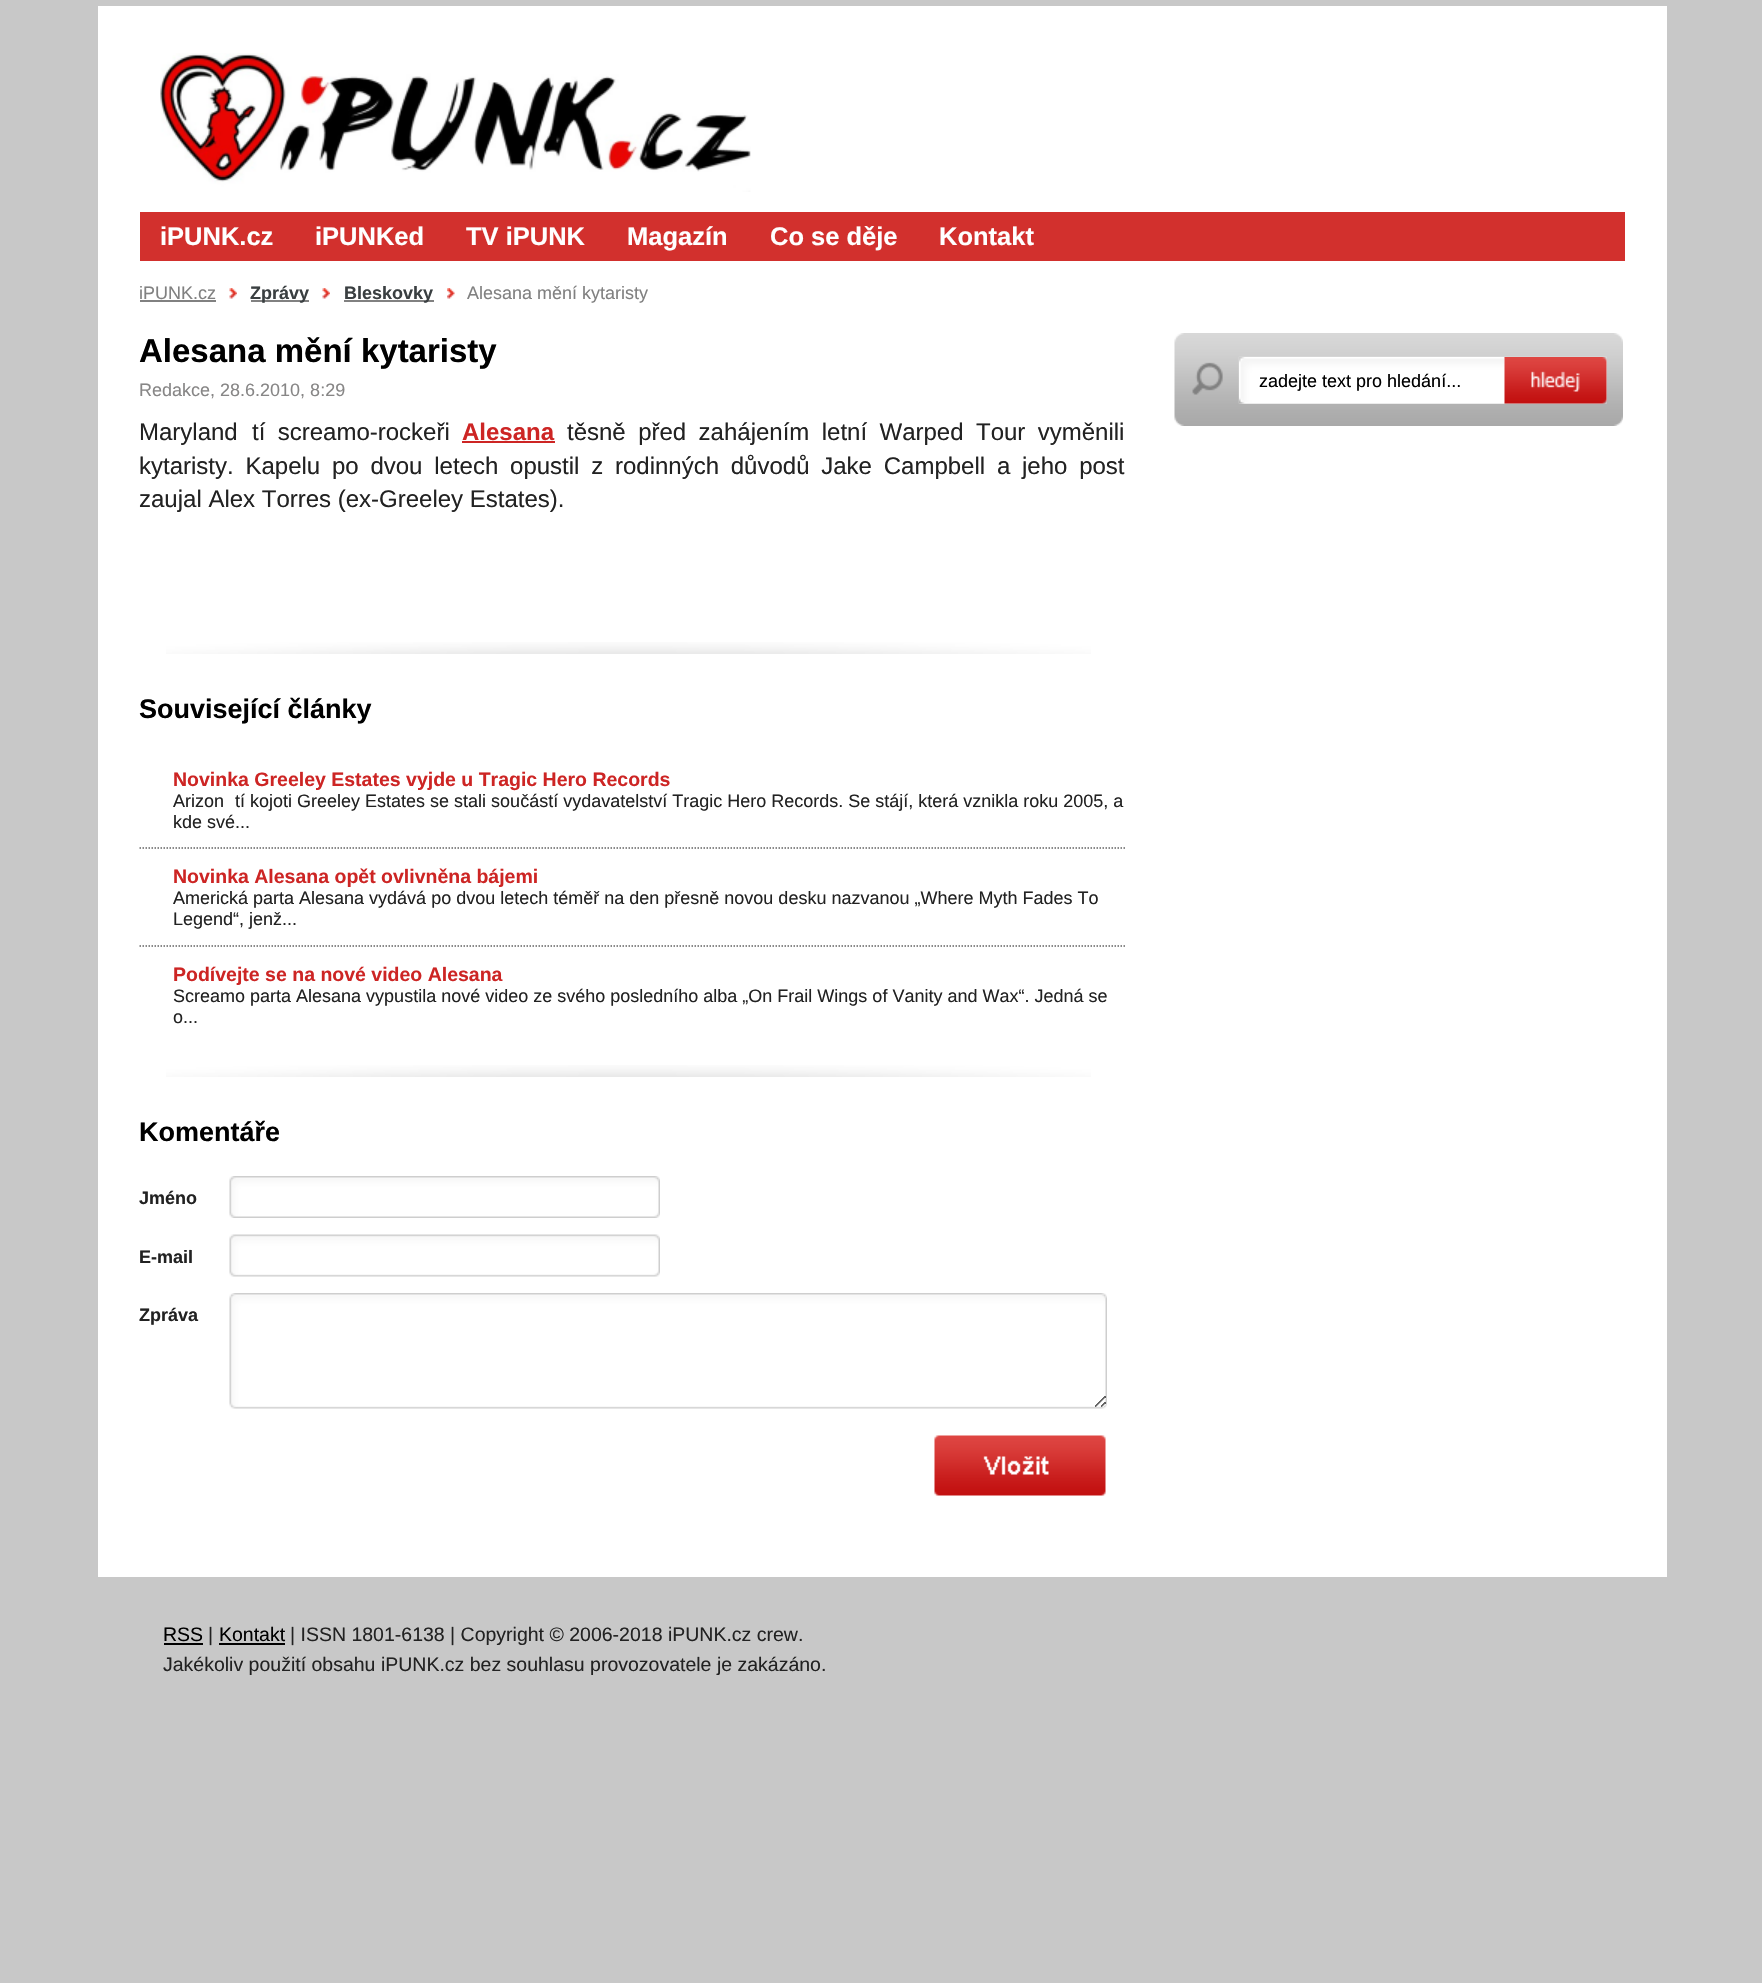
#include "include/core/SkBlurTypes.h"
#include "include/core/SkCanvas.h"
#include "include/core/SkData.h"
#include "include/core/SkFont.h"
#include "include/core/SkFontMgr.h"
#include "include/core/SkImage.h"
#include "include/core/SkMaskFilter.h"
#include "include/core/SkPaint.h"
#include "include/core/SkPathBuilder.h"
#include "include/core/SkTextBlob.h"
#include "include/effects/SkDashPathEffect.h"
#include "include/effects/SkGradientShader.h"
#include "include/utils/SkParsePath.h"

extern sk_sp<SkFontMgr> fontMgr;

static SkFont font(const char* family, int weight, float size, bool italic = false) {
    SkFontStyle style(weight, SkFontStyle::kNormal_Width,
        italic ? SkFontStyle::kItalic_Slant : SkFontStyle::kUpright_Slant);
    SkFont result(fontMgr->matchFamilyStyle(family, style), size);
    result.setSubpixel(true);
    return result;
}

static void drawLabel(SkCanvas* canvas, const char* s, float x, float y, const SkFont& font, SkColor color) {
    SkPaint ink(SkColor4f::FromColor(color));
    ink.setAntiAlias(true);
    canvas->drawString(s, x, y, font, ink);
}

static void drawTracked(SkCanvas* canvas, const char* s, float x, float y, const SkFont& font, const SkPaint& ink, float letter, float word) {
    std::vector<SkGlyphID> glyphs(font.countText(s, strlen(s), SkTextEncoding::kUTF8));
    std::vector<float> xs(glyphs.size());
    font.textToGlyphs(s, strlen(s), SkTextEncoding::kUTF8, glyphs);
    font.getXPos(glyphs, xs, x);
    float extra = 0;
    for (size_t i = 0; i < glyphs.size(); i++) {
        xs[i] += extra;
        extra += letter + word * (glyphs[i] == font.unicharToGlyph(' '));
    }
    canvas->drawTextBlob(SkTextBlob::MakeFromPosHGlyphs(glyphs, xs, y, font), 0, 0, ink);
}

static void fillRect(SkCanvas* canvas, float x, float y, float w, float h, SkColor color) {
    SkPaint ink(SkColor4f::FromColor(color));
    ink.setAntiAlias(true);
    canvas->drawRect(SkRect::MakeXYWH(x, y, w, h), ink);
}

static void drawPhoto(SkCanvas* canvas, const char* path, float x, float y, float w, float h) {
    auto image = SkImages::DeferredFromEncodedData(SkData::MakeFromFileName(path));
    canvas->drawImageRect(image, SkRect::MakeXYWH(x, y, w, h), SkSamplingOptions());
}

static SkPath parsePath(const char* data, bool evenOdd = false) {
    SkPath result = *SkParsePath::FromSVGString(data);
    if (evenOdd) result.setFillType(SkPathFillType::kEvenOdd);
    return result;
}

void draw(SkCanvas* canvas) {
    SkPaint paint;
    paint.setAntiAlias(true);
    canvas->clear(0xFFC8C8C8);
    fillRect(canvas, 98, 6, 1569, 1571, 0xFFFFFFFF);
    drawPhoto(canvas, "assets/img1.png", 160, 53, 591, 139);
    fillRect(canvas, 140, 212, 1485, 49, 0xFFD2302D);
    SkFont font1 = font("Liberation Sans", 700, 25.5f);
    drawLabel(canvas, "iPUNK.cz", 160, 245, font1, 0xFFFFFFFF);
    drawLabel(canvas, "iPUNKed", 315, 245, font1, 0xFFFFFFFF);
    drawLabel(canvas, "TV iPUNK", 466, 245, font1, 0xFFFFFFFF);
    drawLabel(canvas, "Magazín", 627, 245, font1, 0xFFFFFFFF);
    drawLabel(canvas, "Co se děje", 770, 245, font1, 0xFFFFFFFF);
    drawLabel(canvas, "Kontakt", 939, 245, font1, 0xFFFFFFFF);
    SkFont font2 = font("Liberation Sans", 400, 18);
    drawLabel(canvas, "iPUNK.cz", 139, 299, font2, 0xFF818181);
    fillRect(canvas, 140, 300, 76, 2, 0xFF818181);
    drawPhoto(canvas, "assets/img2.png", 229, 288, 8, 11);
    fillRect(canvas, 251, 300, 58, 2, 0xFF818181);
    SkFont font3 = font("Liberation Sans", 700, 18);
    drawLabel(canvas, "Zprávy", 250, 299, font3, 0xFF3A3F41);
    drawPhoto(canvas, "assets/img2.png", 322, 288, 8, 11);
    fillRect(canvas, 344, 300, 90, 2, 0xFF818181);
    drawLabel(canvas, "Bleskovky", 344, 299, font3, 0xFF3A3F41);
    drawPhoto(canvas, "assets/img3.png", 447, 288, 8, 11);
    drawLabel(canvas, "Alesana mění kytaristy", 467, 299, font2, 0xFF818181);
    drawPhoto(canvas, "assets/img4.png", 166, 642, 925, 12);
    SkFont font4 = font("Liberation Sans", 700, 33);
    drawLabel(canvas, "Alesana mění kytaristy", 139, 362, font4, 0xFF000000);
    drawLabel(canvas, "Redakce, 28.6.2010, 8:29", 139, 396, font2, 0xFF878686);
    SkFont font5 = font("Liberation Sans", 400, 24);
    drawLabel(canvas, "Maryland", 139, 440, font5, 0xFF222222);
    paint.setColor(0xFF222222);
    drawTracked(canvas, "tí screamo-rockeři", 252, 440, font5, paint, 0, 5.75f);
    SkFont font6 = font("Liberation Sans", 700, 24);
    drawLabel(canvas, "Alesana", 462, 440, font6, 0xFFCD2524);
    fillRect(canvas, 462, 441, 93, 2, 0xFFCD2524);
    drawTracked(canvas, "těsně před zahájením letní Warped Tour vyměnili", 567, 440, font5, paint, 0, 5.75f);
    drawTracked(canvas, "kytaristy. Kapelu po dvou letech opustil z rodinných důvodů Jake Campbell a jeho post", 139, 474, font5, paint, 0, 5.1f);
    drawLabel(canvas, "zaujal Alex Torres (ex-Greeley Estates).", 139, 507, font5, 0xFF222222);
    drawPhoto(canvas, "assets/img4.png", 166, 1065, 925, 12);
    SkFont font7 = font("Liberation Sans", 700, 27);
    drawLabel(canvas, "Související články", 139, 718, font7, 0xFF000000);
    paint.setStroke(true);
    paint.setStrokeWidth(1.5f);
    paint.setColor(0xFF626262);
    paint.setPathEffect(SkDashPathEffect::Make({{1.5f, 1.5f}}, 0));
    canvas->drawPath(parsePath("M139.5 848H1125"), paint);
    paint.setPathEffect(nullptr);
    SkFont font8 = font("Liberation Sans", 700, 19.5f);
    drawLabel(canvas, "Novinka Greeley Estates vyjde u Tragic Hero Records", 173, 786, font8, 0xFFCD2524);
    drawLabel(canvas, "Arizon", 173, 807, font2, 0xFF222222);
    drawLabel(canvas, "tí kojoti Greeley Estates se stali součástí vydavatelství Tragic Hero Records. Se stájí, která vznikla roku 2005, a", 235, 807, font2, 0xFF222222);
    drawLabel(canvas, "kde své...", 173, 828, font2, 0xFF222222);
    paint.setPathEffect(SkDashPathEffect::Make({{1.5f, 1.5f}}, 0));
    canvas->drawPath(parsePath("M139.5 946H1125"), paint);
    paint.setPathEffect(nullptr);
    drawLabel(canvas, "Novinka Alesana opět ovlivněna bájemi", 173, 883, font8, 0xFFCD2524);
    drawLabel(canvas, "Americká parta Alesana vydává po dvou letech téměř na den přesně novou desku nazvanou „Where Myth Fades To", 173, 904, font2, 0xFF222222);
    drawLabel(canvas, "Legend“, jenž...", 173, 925, font2, 0xFF222222);
    drawLabel(canvas, "Podívejte se na nové video Alesana", 173, 981, font8, 0xFFCD2524);
    drawLabel(canvas, "Screamo parta Alesana vypustila nové video ze svého posledního alba „On Frail Wings of Vanity and Wax“. Jedná se", 173, 1002, font2, 0xFF222222);
    drawLabel(canvas, "o...", 173, 1023, font2, 0xFF222222);
    drawLabel(canvas, "Komentáře", 139, 1141, font7, 0xFF000000);
    drawLabel(canvas, "Jméno", 139, 1204, font3, 0xFF222222);
    drawPhoto(canvas, "assets/img5.png", 229, 1176, 431, 42);
    drawLabel(canvas, "E-mail", 139, 1263, font3, 0xFF222222);
    drawPhoto(canvas, "assets/img6.png", 229, 1234, 431, 43);
    drawLabel(canvas, "Zpráva", 139, 1321, font3, 0xFF222222);
    drawPhoto(canvas, "assets/img7.png", 229, 1293, 878, 116);
    drawPhoto(canvas, "assets/img8.png", 934, 1435, 172, 61);
    drawPhoto(canvas, "assets/img9.png", 1174, 333, 449, 93);
    drawPhoto(canvas, "assets/img10.png", 1239, 357, 266, 47);
    drawLabel(canvas, "zadejte text pro hledání...", 1259, 387, font2, 0xFF000000);
    drawPhoto(canvas, "assets/img11.png", 1504, 357, 103, 47);
    SkFont font9 = font("Liberation Sans", 400, 19.5f);
    drawLabel(canvas, "RSS", 163, 1641, font9, 0xFF000000);
    fillRect(canvas, 164, 1643, 39, 2, 0xFF000000);
    drawLabel(canvas, "|", 208, 1641, font9, 0xFF222222);
    drawLabel(canvas, "Kontakt", 219, 1641, font9, 0xFF000000);
    fillRect(canvas, 219, 1643, 66, 2, 0xFF000000);
    drawLabel(canvas, "| ISSN 1801-6138 | Copyright © 2006-2018 iPUNK.cz crew.", 290, 1641, font9, 0xFF222222);
    drawLabel(canvas, "Jakékoliv použití obsahu iPUNK.cz bez souhlasu provozovatele je zakázáno.", 163, 1671, font9, 0xFF222222);
}
